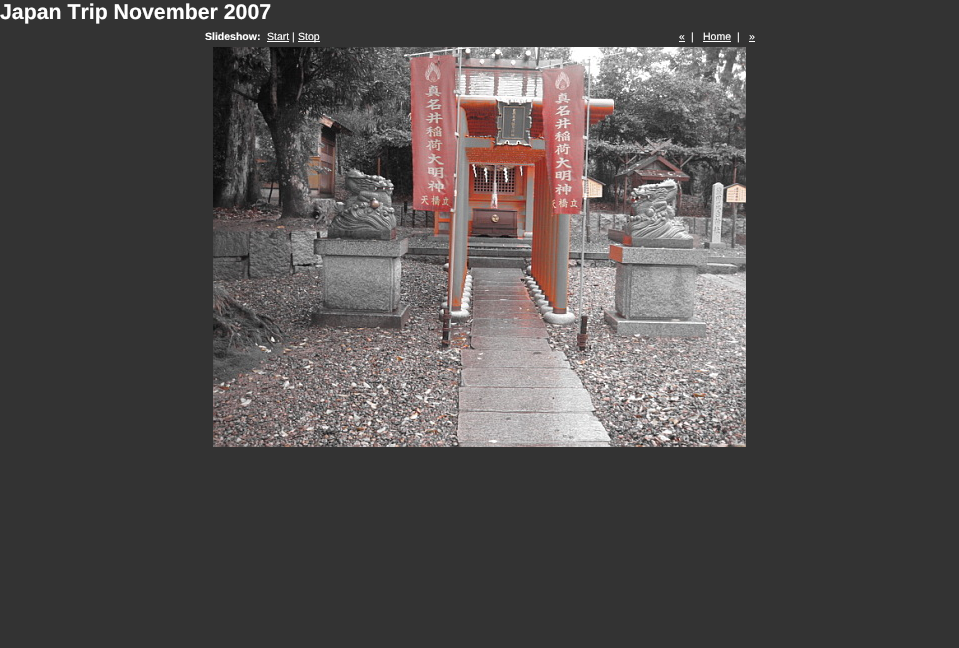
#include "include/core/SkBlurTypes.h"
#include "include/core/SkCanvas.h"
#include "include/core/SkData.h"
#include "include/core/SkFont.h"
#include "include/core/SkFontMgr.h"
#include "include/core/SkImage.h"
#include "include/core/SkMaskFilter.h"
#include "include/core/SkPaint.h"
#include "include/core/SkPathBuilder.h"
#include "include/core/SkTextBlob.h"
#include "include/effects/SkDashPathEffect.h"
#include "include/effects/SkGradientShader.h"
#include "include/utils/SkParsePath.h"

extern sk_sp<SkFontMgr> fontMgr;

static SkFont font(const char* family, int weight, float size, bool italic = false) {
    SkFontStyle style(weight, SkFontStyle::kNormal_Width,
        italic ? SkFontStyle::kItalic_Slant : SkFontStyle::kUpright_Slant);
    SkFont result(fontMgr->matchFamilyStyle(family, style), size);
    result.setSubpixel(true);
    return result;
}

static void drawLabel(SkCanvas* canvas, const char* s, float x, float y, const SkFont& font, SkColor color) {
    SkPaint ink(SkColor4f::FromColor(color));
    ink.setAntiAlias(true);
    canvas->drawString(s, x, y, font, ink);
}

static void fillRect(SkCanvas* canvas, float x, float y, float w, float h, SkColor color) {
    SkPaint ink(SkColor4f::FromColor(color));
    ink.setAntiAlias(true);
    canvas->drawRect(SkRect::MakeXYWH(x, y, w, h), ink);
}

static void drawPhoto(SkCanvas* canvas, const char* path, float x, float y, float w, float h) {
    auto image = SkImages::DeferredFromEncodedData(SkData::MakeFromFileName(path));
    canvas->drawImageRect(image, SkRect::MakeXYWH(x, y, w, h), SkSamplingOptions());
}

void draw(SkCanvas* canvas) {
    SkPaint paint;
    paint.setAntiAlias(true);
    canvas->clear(0xFF333333);
    SkFont font1 = font("Liberation Sans", 700, 21.3f);
    drawLabel(canvas, "Japan Trip November 2007", 0, 19, font1, 0xFFFFFFFF);
    SkFont font2 = font("Liberation Sans", 700, 10.5f);
    drawLabel(canvas, "Slideshow:", 205, 40, font2, 0xFFFFFFFF);
    fillRect(canvas, 267, 41, 22, 1, 0xFFFFFFFF);
    SkFont font3 = font("Liberation Sans", 400, 10.5f);
    drawLabel(canvas, "Start |", 267, 40, font3, 0xFFFFFFFF);
    fillRect(canvas, 298, 41, 22, 1, 0xFFFFFFFF);
    drawLabel(canvas, "Stop", 298, 40, font3, 0xFFFFFFFF);
    drawLabel(canvas, "«", 679, 40, font3, 0xFFFFFFFF);
    fillRect(canvas, 679, 41, 6, 1, 0xFFFFFFFF);
    drawLabel(canvas, "|", 691, 40, font3, 0xFFFFFFFF);
    drawLabel(canvas, "Home", 703, 40, font3, 0xFFFFFFFF);
    fillRect(canvas, 703, 41, 28, 1, 0xFFFFFFFF);
    drawLabel(canvas, "|", 737, 40, font3, 0xFFFFFFFF);
    drawLabel(canvas, "»", 749, 40, font3, 0xFFFFFFFF);
    fillRect(canvas, 749, 41, 6, 1, 0xFFFFFFFF);
    drawPhoto(canvas, "assets/img1.png", 213, 47, 533, 400);
}
